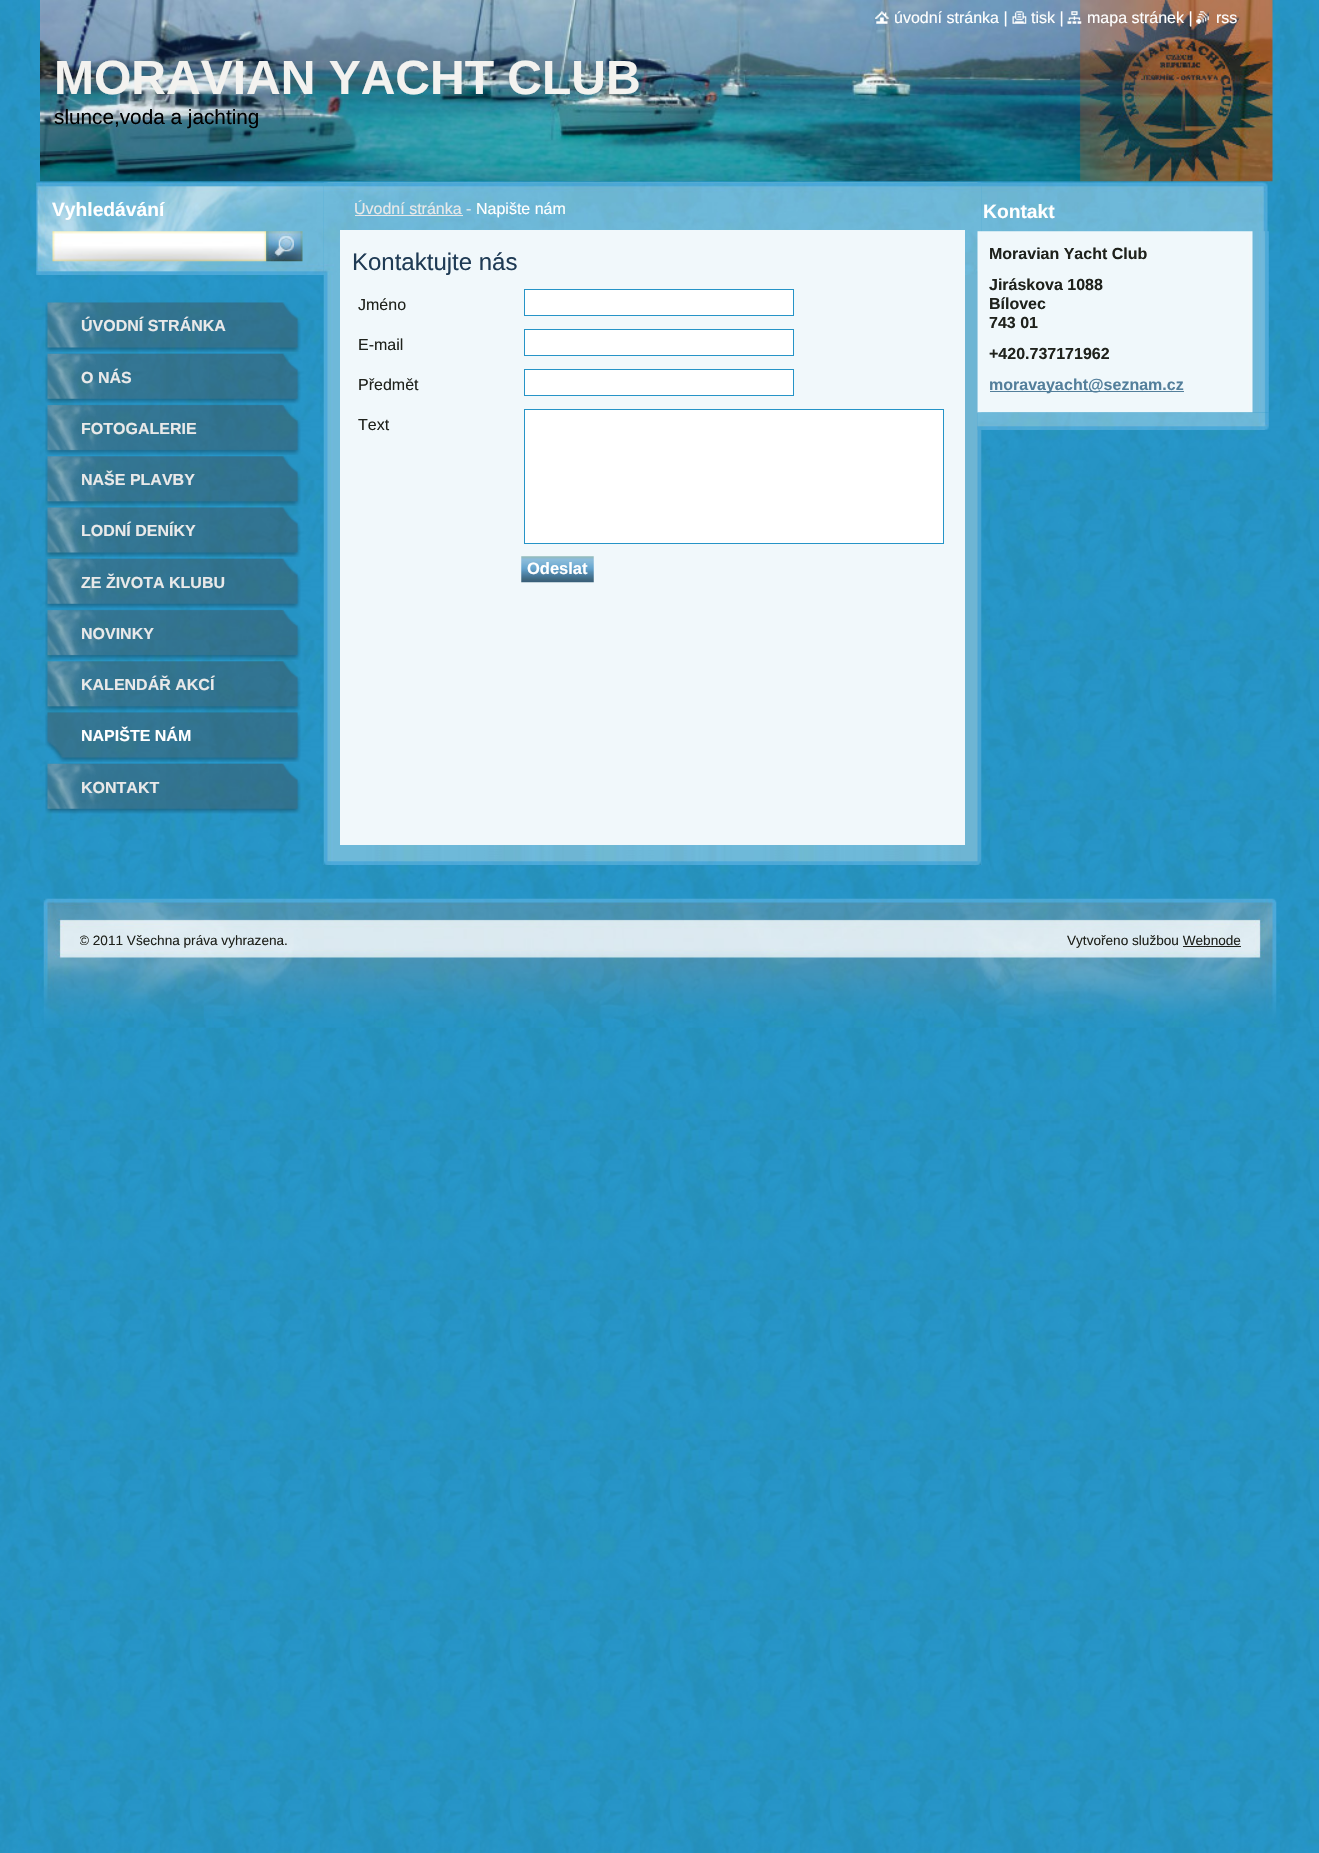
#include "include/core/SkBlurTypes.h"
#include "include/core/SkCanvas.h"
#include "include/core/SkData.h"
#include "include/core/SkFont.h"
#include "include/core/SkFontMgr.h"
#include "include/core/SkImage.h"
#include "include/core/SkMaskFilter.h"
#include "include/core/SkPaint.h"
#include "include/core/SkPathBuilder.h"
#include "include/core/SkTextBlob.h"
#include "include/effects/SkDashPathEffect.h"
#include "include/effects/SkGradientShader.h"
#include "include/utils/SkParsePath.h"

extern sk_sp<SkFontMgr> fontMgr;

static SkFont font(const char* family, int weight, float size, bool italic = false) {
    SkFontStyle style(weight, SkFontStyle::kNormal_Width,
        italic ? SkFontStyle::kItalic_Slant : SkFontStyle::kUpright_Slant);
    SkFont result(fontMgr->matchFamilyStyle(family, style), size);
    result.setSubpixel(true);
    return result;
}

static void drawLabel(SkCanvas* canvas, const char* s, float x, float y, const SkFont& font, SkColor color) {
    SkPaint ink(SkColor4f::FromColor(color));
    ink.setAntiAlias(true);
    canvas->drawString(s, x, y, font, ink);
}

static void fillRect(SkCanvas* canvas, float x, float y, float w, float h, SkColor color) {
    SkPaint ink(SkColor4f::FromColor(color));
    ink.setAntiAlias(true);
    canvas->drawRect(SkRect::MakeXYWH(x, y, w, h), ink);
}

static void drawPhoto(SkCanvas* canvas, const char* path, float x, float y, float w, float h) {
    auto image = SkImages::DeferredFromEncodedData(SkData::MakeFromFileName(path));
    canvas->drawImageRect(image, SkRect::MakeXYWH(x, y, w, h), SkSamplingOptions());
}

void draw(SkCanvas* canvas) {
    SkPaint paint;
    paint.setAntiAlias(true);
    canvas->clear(0xFFFFFFFF);
    drawPhoto(canvas, "assets/img1.png", 0, 1028, 1319, 825);
    fillRect(canvas, 0, 1027, 1319, 1, 0xFF2693C2);
    drawPhoto(canvas, "assets/img2.png", 0, 0, 1319, 1028);
    drawPhoto(canvas, "assets/img7.png", 40, 0, 1233, 182);
    drawPhoto(canvas, "assets/img3.png", 875, 11, 14, 13);
    SkFont font1 = font("Liberation Sans", 400, 16);
    drawLabel(canvas, "úvodní stránka |", 894, 23, font1, 0xFFFFFFFF);
    drawPhoto(canvas, "assets/img4.png", 1012, 11, 15, 13);
    drawLabel(canvas, "tisk |", 1031, 23, font1, 0xFFFFFFFF);
    drawPhoto(canvas, "assets/img5.png", 1067, 11, 15, 13);
    drawLabel(canvas, "mapa stránek |", 1087, 23, font1, 0xFFFFFFFF);
    drawPhoto(canvas, "assets/img6.png", 1196, 11, 13, 13);
    drawLabel(canvas, "rss", 1216, 23, font1, 0xFFFFFFFF);
    SkFont font2 = font("Liberation Sans", 700, 48);
    drawLabel(canvas, "MORAVIAN YACHT CLUB", 54, 94, font2, 0xFFF3F2EF);
    SkFont font3 = font("Liberation Sans", 400, 20.75f);
    drawLabel(canvas, "slunce,voda a jachting", 54, 124, font3, 0xFF000000);
    drawPhoto(canvas, "assets/img8.png", 36, 182, 1232, 93);
    SkFont font4 = font("Liberation Sans", 700, 19.25f);
    drawLabel(canvas, "Vyhledávání", 52, 216, font4, 0xFFFFFFFF);
    drawPhoto(canvas, "assets/img9.png", 52, 231, 215, 31);
    drawPhoto(canvas, "assets/img10.png", 266, 231, 37, 31);
    drawPhoto(canvas, "assets/img11.png", 323, 182, 659, 683);
    drawPhoto(canvas, "assets/img12.png", 324, 183, 657, 92);
    drawLabel(canvas, "Úvodní stránka -", 354, 214, font1, 0xFFE9E9E9);
    fillRect(canvas, 355, 215, 108, 1, 0xFFE9E9E9);
    drawLabel(canvas, "Napište nám", 476, 214, font1, 0xFFFFFFFF);
    fillRect(canvas, 340, 230, 625, 615, 0xFFF1F8FB);
    SkFont font5 = font("Liberation Sans", 400, 24);
    drawLabel(canvas, "Kontaktujte nás", 352, 270, font5, 0xFF1F3B55);
    drawLabel(canvas, "Jméno", 358, 310, font1, 0xFF1F221C);
    paint.setColor(0xFFFFFFFF);
    canvas->drawRect(SkRect::MakeXYWH(524.5f, 289.5f, 269, 26), paint);
    paint.setStroke(true);
    paint.setStrokeWidth(1);
    paint.setColor(0xFF2694C7);
    canvas->drawRect(SkRect::MakeXYWH(524.5f, 289.5f, 269, 26), paint);
    drawLabel(canvas, "E-mail", 358, 350, font1, 0xFF1F221C);
    paint.setStroke(false);
    paint.setColor(0xFFFFFFFF);
    canvas->drawRect(SkRect::MakeXYWH(524.5f, 329.5f, 269, 26), paint);
    paint.setStroke(true);
    paint.setColor(0xFF2694C7);
    canvas->drawRect(SkRect::MakeXYWH(524.5f, 329.5f, 269, 26), paint);
    drawLabel(canvas, "Předmět", 358, 390, font1, 0xFF1F221C);
    paint.setStroke(false);
    paint.setColor(0xFFFFFFFF);
    canvas->drawRect(SkRect::MakeXYWH(524.5f, 369.5f, 269, 26), paint);
    paint.setStroke(true);
    paint.setColor(0xFF2694C7);
    canvas->drawRect(SkRect::MakeXYWH(524.5f, 369.5f, 269, 26), paint);
    drawLabel(canvas, "Text", 358, 430, font1, 0xFF1F221C);
    paint.setStroke(false);
    paint.setColor(0xFFFFFFFF);
    canvas->drawRect(SkRect::MakeXYWH(524.5f, 409.5f, 419, 134), paint);
    paint.setStroke(true);
    paint.setColor(0xFF2694C7);
    canvas->drawRect(SkRect::MakeXYWH(524.5f, 409.5f, 419, 134), paint);
    drawPhoto(canvas, "assets/img13.png", 521, 556, 73, 27);
    SkFont font6 = font("Liberation Sans", 700, 16.5f);
    drawLabel(canvas, "Odeslat", 527, 574, font6, 0xFFFFFFFF);
    drawPhoto(canvas, "assets/img14.png", 324, 861, 657, 4);
    drawLabel(canvas, "Kontakt", 983, 218, font4, 0xFFFFFFFF);
    drawPhoto(canvas, "assets/img15.png", 977, 231, 292, 182);
    SkFont font7 = font("Liberation Sans", 700, 16);
    drawLabel(canvas, "Moravian Yacht Club", 989, 259, font7, 0xFF1F221C);
    drawLabel(canvas, "Jiráskova 1088", 989, 290, font7, 0xFF1F221C);
    drawLabel(canvas, "Bílovec", 989, 309, font7, 0xFF1F221C);
    drawLabel(canvas, "743 01", 989, 328, font7, 0xFF1F221C);
    drawLabel(canvas, "+420.737171962", 989, 359, font7, 0xFF1F221C);
    fillRect(canvas, 990, 391, 74, 1, 0xFF537F9B);
    drawLabel(canvas, "moravaya", 989, 390, font7, 0xFF537F9B);
    fillRect(canvas, 1064, 391, 120, 1, 0xFF537F9B);
    drawLabel(canvas, "cht@seznam.cz", 1064, 390, font7, 0xFF537F9B);
    drawPhoto(canvas, "assets/img16.png", 977, 412, 292, 18);
    drawPhoto(canvas, "assets/img17.png", 45, 302, 256, 50);
    drawLabel(canvas, "ÚVODNÍ STRÁNKA", 81, 331, font7, 0xFFE9E9E9);
    drawPhoto(canvas, "assets/img18.png", 45, 353, 256, 51);
    drawLabel(canvas, "O NÁS", 81, 383, font7, 0xFFE9E9E9);
    drawPhoto(canvas, "assets/img19.png", 45, 404, 256, 51);
    drawLabel(canvas, "FOTOGALERIE", 81, 434, font7, 0xFFE9E9E9);
    drawPhoto(canvas, "assets/img20.png", 45, 456, 256, 50);
    drawLabel(canvas, "NAŠE PLAVBY", 81, 485, font7, 0xFFE9E9E9);
    drawPhoto(canvas, "assets/img21.png", 45, 507, 256, 50);
    drawLabel(canvas, "LODNÍ DENÍKY", 81, 536, font7, 0xFFE9E9E9);
    drawPhoto(canvas, "assets/img22.png", 45, 558, 256, 51);
    drawLabel(canvas, "ZE ŽIVOTA KLUBU", 81, 588, font7, 0xFFE9E9E9);
    drawPhoto(canvas, "assets/img23.png", 45, 609, 256, 51);
    drawLabel(canvas, "NOVINKY", 81, 639, font7, 0xFFE9E9E9);
    drawPhoto(canvas, "assets/img24.png", 45, 661, 256, 50);
    drawLabel(canvas, "KALENDÁŘ AKCÍ", 81, 690, font7, 0xFFE9E9E9);
    drawPhoto(canvas, "assets/img25.png", 45, 711, 256, 51);
    drawLabel(canvas, "NAPIŠTE NÁM", 81, 741, font7, 0xFFFFFFFF);
    drawPhoto(canvas, "assets/img26.png", 45, 763, 256, 51);
    drawLabel(canvas, "KONTAKT", 81, 793, font7, 0xFFE9E9E9);
    drawPhoto(canvas, "assets/img27.png", 43, 898, 1234, 130);
    canvas->save();
    canvas->clipRect(SkRect::MakeXYWH(80, 931, 563, 20));
    SkFont font8 = font("Liberation Sans", 400, 13.6f);
    drawLabel(canvas, "© 2011 Všechna práva vyhrazena.", 79, 945, font8, 0xFF1F221C);
    canvas->restore();
    drawLabel(canvas, "Vytvořeno službou Webnode", 1067, 945, font8, 0xFF1F221C);
    fillRect(canvas, 1183, 946, 58, 1, 0xFF1F221C);
}
